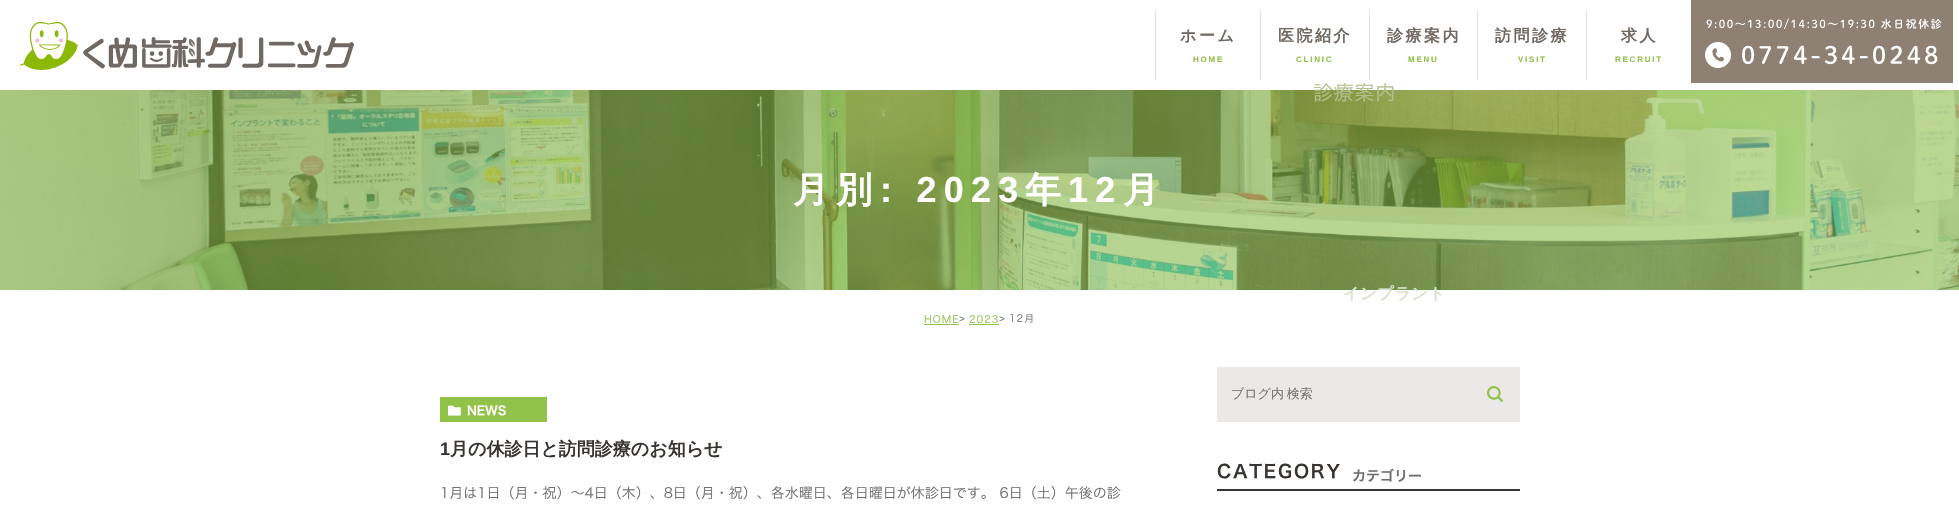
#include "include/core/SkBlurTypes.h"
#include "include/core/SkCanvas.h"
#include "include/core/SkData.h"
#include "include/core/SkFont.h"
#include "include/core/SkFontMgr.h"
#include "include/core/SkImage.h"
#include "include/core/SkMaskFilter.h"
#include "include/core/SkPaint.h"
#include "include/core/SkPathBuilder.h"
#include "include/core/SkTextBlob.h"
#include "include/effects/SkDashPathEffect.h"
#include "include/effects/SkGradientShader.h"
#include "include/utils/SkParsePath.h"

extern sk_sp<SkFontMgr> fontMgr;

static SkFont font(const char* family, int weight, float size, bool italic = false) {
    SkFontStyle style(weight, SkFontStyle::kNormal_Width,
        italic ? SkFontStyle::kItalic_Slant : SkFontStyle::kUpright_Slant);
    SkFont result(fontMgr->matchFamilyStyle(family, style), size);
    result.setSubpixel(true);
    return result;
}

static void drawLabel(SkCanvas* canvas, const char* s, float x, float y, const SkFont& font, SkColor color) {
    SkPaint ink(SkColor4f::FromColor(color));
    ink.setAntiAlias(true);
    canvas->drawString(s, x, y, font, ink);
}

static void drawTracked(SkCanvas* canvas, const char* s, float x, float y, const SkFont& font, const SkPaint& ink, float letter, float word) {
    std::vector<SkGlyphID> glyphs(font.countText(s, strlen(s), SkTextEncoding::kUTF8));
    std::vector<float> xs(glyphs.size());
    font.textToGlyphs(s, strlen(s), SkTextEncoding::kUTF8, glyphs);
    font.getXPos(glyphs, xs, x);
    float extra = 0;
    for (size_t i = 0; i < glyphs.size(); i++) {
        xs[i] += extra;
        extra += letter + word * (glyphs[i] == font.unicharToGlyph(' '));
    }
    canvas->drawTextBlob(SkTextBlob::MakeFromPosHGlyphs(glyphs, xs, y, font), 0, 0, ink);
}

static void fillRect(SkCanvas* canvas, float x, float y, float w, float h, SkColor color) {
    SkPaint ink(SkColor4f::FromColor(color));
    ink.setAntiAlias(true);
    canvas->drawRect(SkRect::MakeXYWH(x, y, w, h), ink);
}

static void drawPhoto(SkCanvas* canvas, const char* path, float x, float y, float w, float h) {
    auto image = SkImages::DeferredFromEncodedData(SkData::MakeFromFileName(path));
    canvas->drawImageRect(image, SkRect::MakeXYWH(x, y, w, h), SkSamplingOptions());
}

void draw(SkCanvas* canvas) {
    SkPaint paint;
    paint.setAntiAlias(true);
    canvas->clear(0xFFFFFFFF);
    drawPhoto(canvas, "assets/img1.png", 0, 90, 1959, 200);
    SkFont font1 = font("WenQuanYi Zen Hei", 700, 36);
    paint.setColor(0xFFFFFFFF);
    drawTracked(canvas, "月別", 793, 202, font1, paint, 7.25f, 0);
    SkFont font2 = font("Liberation Sans", 700, 36);
    drawTracked(canvas, ": 2023", 880, 202, font2, paint, 7.25f, 0);
    drawTracked(canvas, "年", 1025, 202, font1, paint, 7.25f, 0);
    drawTracked(canvas, "12", 1068, 202, font2, paint, 7.25f, 0);
    drawTracked(canvas, "月", 1123, 202, font1, paint, 7.25f, 0);
    drawPhoto(canvas, "assets/img2.png", 20, 22, 334, 48);
    fillRect(canvas, 1260, 10, 1, 70, 0xFFE3E0DD);
    SkFont font3 = font("WenQuanYi Zen Hei", 700, 16);
    paint.setColor(0xFF706963);
    drawTracked(canvas, "医院紹介", 1278, 41, font3, paint, 2.5f, 0);
    SkFont font4 = font("Liberation Sans", 700, 8);
    paint.setColor(0xFF93C24B);
    drawTracked(canvas, "CLINIC", 1296, 62, font4, paint, 1.75f, 0);
    fillRect(canvas, 1155, 10, 1, 70, 0xFFE3E0DD);
    paint.setColor(0xFF706963);
    drawTracked(canvas, "ホーム", 1180, 41, font3, paint, 2.5f, 0);
    paint.setColor(0xFF93C24B);
    drawTracked(canvas, "HOME", 1193, 62, font4, paint, 1.75f, 0);
    fillRect(canvas, 1369, 10, 1, 70, 0xFFE3E0DD);
    paint.setColor(0xFF706963);
    drawTracked(canvas, "診療案内", 1387, 41, font3, paint, 2.5f, 0);
    paint.setColor(0xFF93C24B);
    drawTracked(canvas, "MENU", 1408, 62, font4, paint, 1.75f, 0);
    SkFont font5 = font("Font", 300, 20);
    paint.setColor(0xFFB6C08D);
    drawTracked(canvas, "診療案内", 1313, 100, font5, paint, 0.75f, 0);
    paint.setColor(0xFFDBE2D1);
    drawTracked(canvas, "インプラント", 1343, 299, font3, paint, 0.75f, 0);
    fillRect(canvas, 1477, 10, 1, 70, 0xFFE3E0DD);
    paint.setColor(0xFF706963);
    drawTracked(canvas, "訪問診療", 1495, 41, font3, paint, 2.5f, 0);
    paint.setColor(0xFF93C24B);
    drawTracked(canvas, "VISIT", 1518, 62, font4, paint, 1.75f, 0);
    fillRect(canvas, 1586, 10, 1, 70, 0xFFE3E0DD);
    paint.setColor(0xFF706963);
    drawTracked(canvas, "求人", 1621, 41, font3, paint, 2.5f, 0);
    paint.setColor(0xFF93C24B);
    drawTracked(canvas, "RECRUIT", 1615, 62, font4, paint, 1.75f, 0);
    drawPhoto(canvas, "assets/img3.png", 1691, 0, 262, 83);
    SkFont font6 = font("Font", 300, 10);
    drawTracked(canvas, "HOME", 924, 323, font6, paint, 1, 0);
    fillRect(canvas, 924, 324, 35, 1, 0xFF93C24B);
    SkFont font7 = font("Liberation Sans", 400, 10);
    paint.setColor(0xFF72706E);
    drawTracked(canvas, ">", 959, 322, font7, paint, 1, 0);
    paint.setColor(0xFF93C24B);
    drawTracked(canvas, "2023", 969, 323, font6, paint, 1, 0);
    fillRect(canvas, 969, 324, 30, 1, 0xFF93C24B);
    paint.setColor(0xFF72706E);
    drawTracked(canvas, ">", 999, 322, font7, paint, 1, 0);
    drawTracked(canvas, "12月", 1009, 322, font6, paint, 1, 0);
    fillRect(canvas, 440, 397, 107, 25, 0xFF93C24B);
    drawPhoto(canvas, "assets/img4.png", 448, 405, 13, 11);
    SkFont font8 = font("Font", 600, 12);
    drawLabel(canvas, "NEWS", 467, 415, font8, 0xFFFFFFFF);
    SkFont font9 = font("Liberation Sans", 700, 18);
    drawLabel(canvas, "1", 440, 455, font9, 0xFF373431);
    SkFont font10 = font("WenQuanYi Zen Hei", 700, 18);
    drawLabel(canvas, "月の休診日と訪問診療のお知らせ", 450, 455, font10, 0xFF373431);
    SkFont font11 = font("Font", 300, 14);
    drawLabel(canvas, "1月は1日（月・祝）～4日（木）、8日（月・祝）、各水曜日、各日曜日が休診日です。 6日（土）午後の診", 440, 498, font11, 0xFF72706E);
    fillRect(canvas, 1217, 367, 303, 55, 0xFFEBE9E7);
    SkFont font12 = font("WenQuanYi Zen Hei", 500, 13);
    paint.setColor(0xFF757575);
    drawTracked(canvas, "ブログ内 検索", 1231, 398, font12, paint, 0, -1);
    drawPhoto(canvas, "assets/img5.png", 1487, 386, 16, 16);
    fillRect(canvas, 1217, 489, 303, 2, 0xFF373431);
    SkFont font13 = font("Font", 600, 18);
    paint.setColor(0xFF373431);
    drawTracked(canvas, "CATEGORY", 1217, 478, font13, paint, 1.75f, 0);
    SkFont font14 = font("Font", 600, 14);
    drawLabel(canvas, "カテゴリー", 1352, 481, font14, 0xFF72706E);
}
